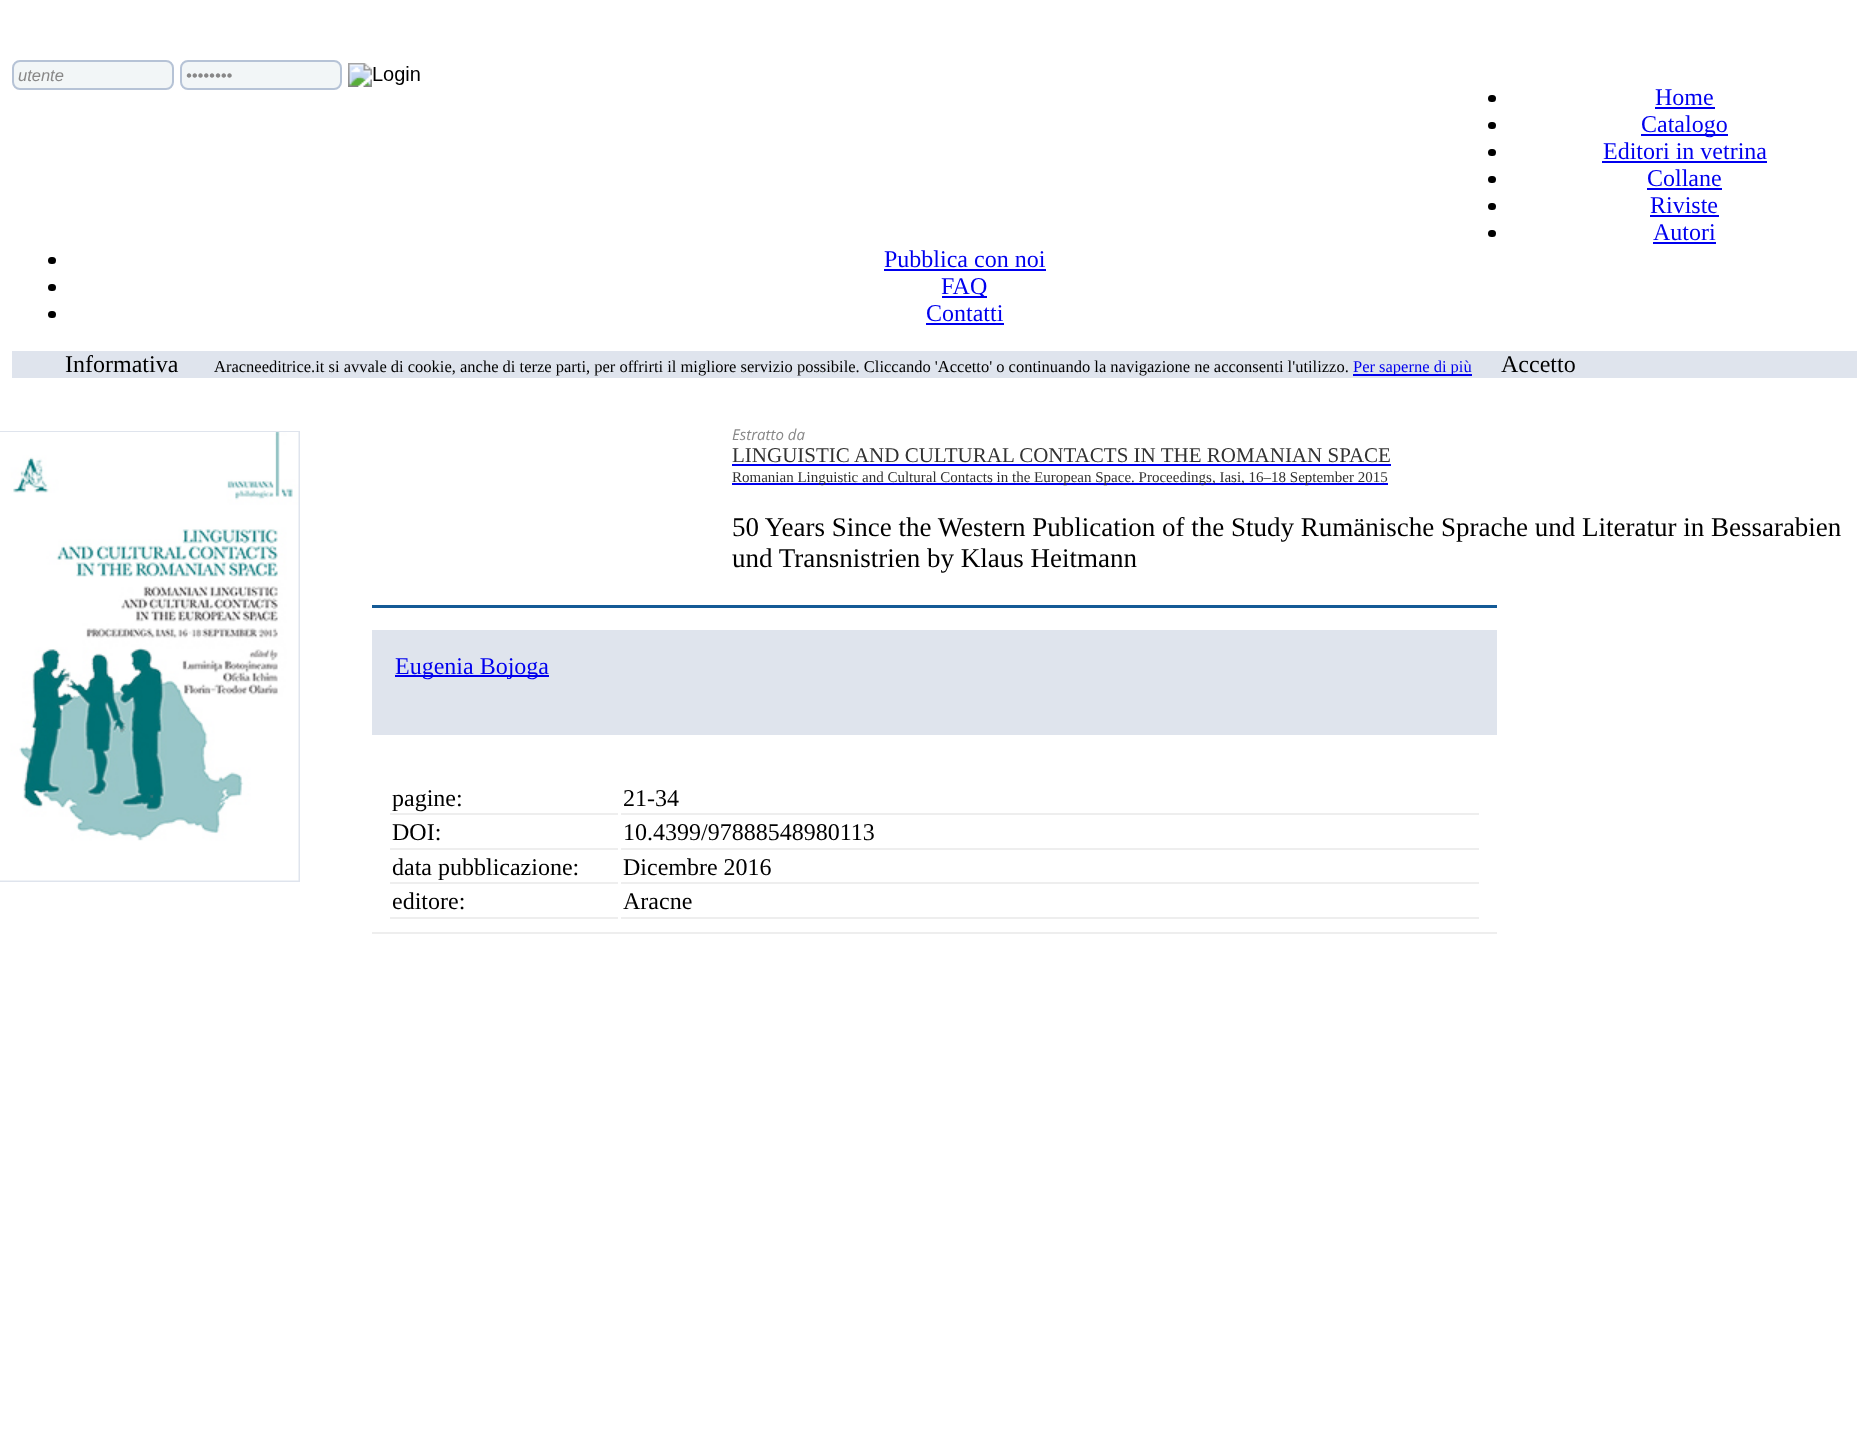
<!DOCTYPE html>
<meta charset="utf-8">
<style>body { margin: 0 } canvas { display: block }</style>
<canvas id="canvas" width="1868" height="1436"></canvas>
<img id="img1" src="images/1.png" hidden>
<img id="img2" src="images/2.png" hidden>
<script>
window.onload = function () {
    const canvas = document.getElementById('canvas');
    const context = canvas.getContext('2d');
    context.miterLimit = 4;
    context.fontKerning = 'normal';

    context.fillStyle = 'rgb(255, 255, 255)';
    context.fillRect(0, 0, 1868, 1436);
    context.fillStyle = 'rgb(242, 246, 247)';
    context.beginPath();
    context.roundRect(13, 61, 160, 28, 7);
    context.fill();
    context.strokeStyle = 'rgb(182, 195, 214)';
    context.lineWidth = 2;
    context.stroke();
    context.beginPath();
    context.roundRect(181, 61, 160, 28, 7);
    context.fill();
    context.stroke();
    context.drawImage(document.getElementById('img1'), 348, 63, 72, 24);
    context.fillStyle = 'rgb(0, 0, 0)';
    context.beginPath();
    context.roundRect(1488, 95, 8, 7, 3.5);
    context.fill();
    context.fillStyle = 'rgb(0, 0, 238)';
    context.fillRect(1655, 107, 60, 2);
    context.fillStyle = 'rgb(0, 0, 0)';
    context.beginPath();
    context.roundRect(1488, 122, 8, 7, 3.5);
    context.fill();
    context.fillStyle = 'rgb(0, 0, 238)';
    context.fillRect(1641, 134, 87, 2);
    context.fillStyle = 'rgb(0, 0, 0)';
    context.beginPath();
    context.roundRect(1488, 149, 8, 7, 3.5);
    context.fill();
    context.fillStyle = 'rgb(0, 0, 238)';
    context.fillRect(1602, 161, 165, 2);
    context.fillStyle = 'rgb(0, 0, 0)';
    context.beginPath();
    context.roundRect(1488, 176, 8, 7, 3.5);
    context.fill();
    context.fillStyle = 'rgb(0, 0, 238)';
    context.fillRect(1647, 188, 75, 2);
    context.fillStyle = 'rgb(0, 0, 0)';
    context.beginPath();
    context.roundRect(1488, 203, 8, 7, 3.5);
    context.fill();
    context.fillStyle = 'rgb(0, 0, 238)';
    context.fillRect(1650, 215, 69, 2);
    context.fillStyle = 'rgb(0, 0, 0)';
    context.beginPath();
    context.roundRect(1488, 230, 8, 7, 3.5);
    context.fill();
    context.fillStyle = 'rgb(0, 0, 238)';
    context.fillRect(1653, 242, 63, 2);
    context.fillStyle = 'rgb(0, 0, 0)';
    context.beginPath();
    context.roundRect(48, 257, 8, 7, 3.5);
    context.fill();
    context.fillStyle = 'rgb(0, 0, 238)';
    context.fillRect(884, 269, 162, 2);
    context.fillStyle = 'rgb(0, 0, 0)';
    context.beginPath();
    context.roundRect(48, 284, 8, 7, 3.5);
    context.fill();
    context.fillStyle = 'rgb(0, 0, 238)';
    context.fillRect(942, 296, 45, 2);
    context.fillStyle = 'rgb(0, 0, 0)';
    context.beginPath();
    context.roundRect(48, 311, 8, 7, 3.5);
    context.fill();
    context.fillStyle = 'rgb(0, 0, 238)';
    context.fillRect(926, 323, 78, 2);
    context.fillStyle = 'rgb(223, 228, 237)';
    context.fillRect(12, 351, 1845, 27);
    context.fillStyle = 'rgb(0, 0, 238)';
    context.fillRect(1353, 374, 119, 2);
    context.fillRect(732, 464, 659, 2);
    context.fillRect(732, 483, 656, 2);
    context.strokeStyle = 'rgb(223, 228, 237)';
    context.strokeRect(-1, 432, 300, 449);
    context.drawImage(document.getElementById('img2'), 0, 432, 299, 449);
    context.fillStyle = 'rgb(20, 90, 150)';
    context.fillRect(372, 605, 1125, 3);
    context.fillStyle = 'rgb(223, 228, 237)';
    context.fillRect(372, 630, 1125, 105);
    context.fillStyle = 'rgb(0, 0, 238)';
    context.fillRect(395, 675, 154, 2);
    context.fillStyle = 'rgb(238, 238, 238)';
    context.fillRect(372, 932, 1125, 2);
    context.fillRect(390, 813, 228, 2);
    context.fillRect(621, 813, 858, 2);
    context.fillRect(390, 848, 228, 2);
    context.fillRect(621, 848, 858, 2);
    context.fillRect(390, 882, 228, 2);
    context.fillRect(621, 882, 858, 2);
    context.fillRect(390, 917, 228, 2);
    context.fillRect(621, 917, 858, 2);
    context.font = 'italic 16.5px Liberation Sans';
    context.fillStyle = 'rgb(136, 136, 136)';
    context.fillText('utente', 18, 81);
    context.fillText('••••••••', 186, 81);
    context.font = '24px Liberation Serif';
    context.fillStyle = 'rgb(0, 0, 238)';
    context.fillText('Home', 1655, 105);
    context.fillText('Catalogo', 1641, 132);
    context.fillText('Editori in vetrina', 1603, 159);
    context.fillText('Collane', 1647, 186);
    context.fillText('Riviste', 1650, 213);
    context.fillText('Autori', 1653, 240);
    context.fillText('Pubblica con noi', 884, 267);
    context.fillText('FAQ', 941, 294);
    context.fillText('Contatti', 926, 321);
    context.fillStyle = 'rgb(0, 0, 0)';
    context.fillText('Informativa', 65, 372);
    context.font = '16.5px Liberation Serif';
    context.fillText('Aracneeditrice.it si avvale di cookie, anche di terze parti, per offrirti il migliore servizio possibile. Cliccando \'Accetto\' o continuando la navigazione ne acconsenti l\'utilizzo.', 214, 372);
    context.fillStyle = 'rgb(0, 0, 238)';
    context.fillText('Per saperne di più', 1353, 372);
    context.font = '24px Liberation Serif';
    context.fillStyle = 'rgb(0, 0, 0)';
    context.fillText('Accetto', 1501, 372);
    context.font = 'italic 15px Open Sans';
    context.fillStyle = 'rgb(136, 136, 136)';
    context.fillText('Estratto da', 732, 440);
    context.font = '21px Liberation Serif';
    context.fillStyle = 'rgb(51, 51, 51)';
    context.fillText('LINGUISTIC AND CULTURAL CONTACTS IN THE ROMANIAN SPACE', 732, 462);
    context.font = '15px Liberation Serif';
    context.fillText('Romanian Linguistic and Cultural Contacts in the European Space. Proceedings, Iasi, 16–18 September 2015', 732, 482);
    context.font = '27px Liberation Serif';
    context.fillStyle = 'rgb(0, 0, 0)';
    context.fillText('50 Years Since the Western Publication of the Study Rumänische Sprache und Literatur in Bessarabien', 732, 536);
    context.fillText('und Transnistrien by Klaus Heitmann', 732, 567);
    context.font = '24px Liberation Serif';
    context.fillStyle = 'rgb(0, 0, 238)';
    context.fillText('Eugenia Bojoga', 395, 674);
    context.fillStyle = 'rgb(0, 0, 0)';
    context.fillText('pagine:', 392, 806);
    context.fillText('21-34', 623, 806);
    context.fillText('DOI:', 392, 840);
    context.fillText('10.4399/97888548980113', 623, 840);
    context.fillText('data pubblicazione:', 392, 875);
    context.fillText('Dicembre 2016', 623, 875);
    context.fillText('editore:', 392, 909);
    context.fillText('Aracne', 623, 909);
};
</script>
